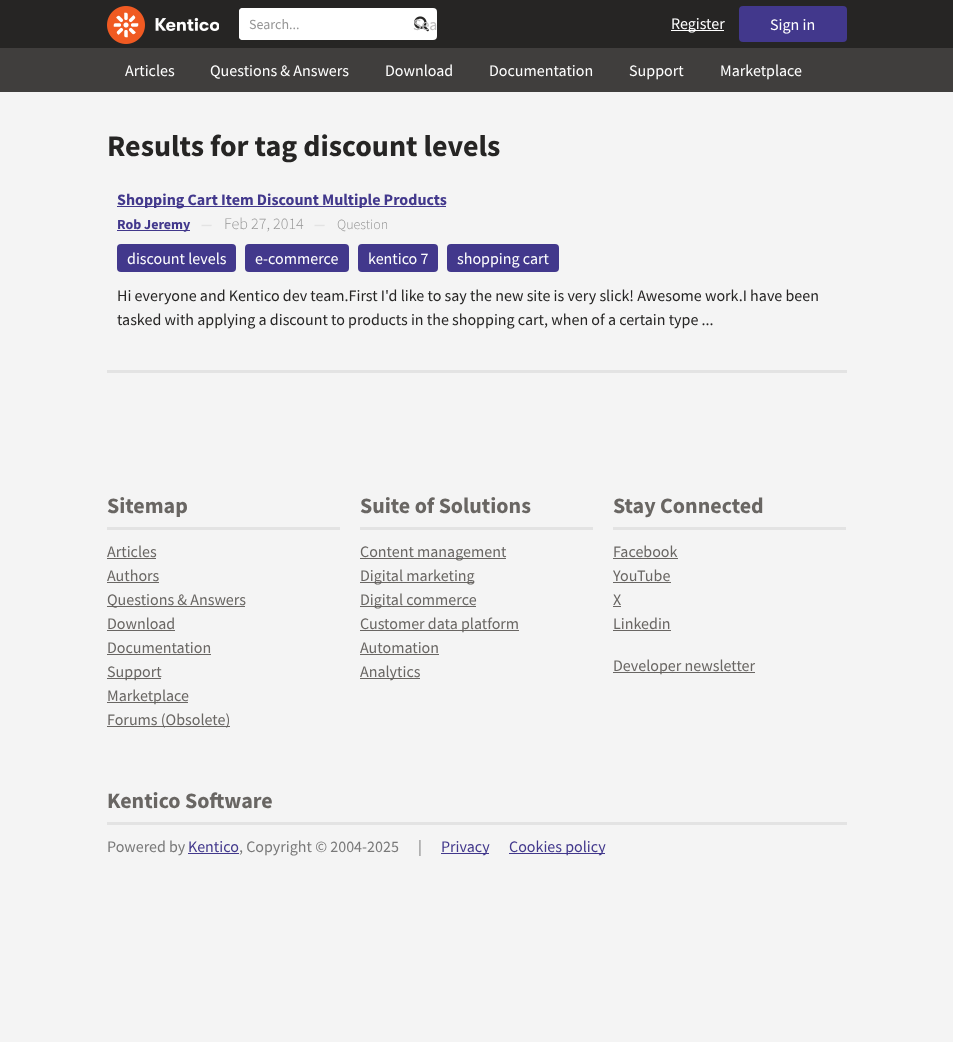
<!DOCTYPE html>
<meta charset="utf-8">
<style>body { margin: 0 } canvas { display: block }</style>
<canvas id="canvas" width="953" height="1042"></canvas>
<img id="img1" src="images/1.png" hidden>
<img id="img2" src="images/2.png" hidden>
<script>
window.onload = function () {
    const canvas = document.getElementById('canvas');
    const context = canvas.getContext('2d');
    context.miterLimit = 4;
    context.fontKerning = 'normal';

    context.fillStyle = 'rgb(244, 244, 244)';
    context.fillRect(0, 0, 953, 1042);
    context.fillStyle = 'rgb(38, 37, 36)';
    context.fillRect(0, 0, 953, 48);
    context.drawImage(document.getElementById('img1'), 107, 6, 112, 38);
    context.fillStyle = 'rgb(255, 255, 255)';
    context.beginPath();
    context.roundRect(239, 8, 198, 32, 4);
    context.fill();
    context.beginPath();
    context.roundRect(239, 8, 168, 32, [4, 0, 0, 4]);
    context.fill();
    context.drawImage(document.getElementById('img2'), 414, 16, 15, 16);
    context.fillRect(671, 30, 53, 1);
    context.fillStyle = 'rgb(66, 56, 140)';
    context.beginPath();
    context.roundRect(739, 6, 108, 36, 4);
    context.fill();
    context.fillStyle = 'rgb(64, 62, 61)';
    context.fillRect(0, 48, 953, 44);
    context.fillStyle = 'rgb(66, 56, 140)';
    context.fillRect(117, 206, 329, 1);
    context.fillRect(117, 230, 73, 1);
    context.beginPath();
    context.roundRect(117, 244, 119, 28, 4);
    context.fill();
    context.beginPath();
    context.roundRect(245, 244, 104, 28, 4);
    context.fill();
    context.beginPath();
    context.roundRect(358, 244, 80, 28, 4);
    context.fill();
    context.beginPath();
    context.roundRect(447, 244, 112, 28, 4);
    context.fill();
    context.fillStyle = 'rgb(227, 227, 227)';
    context.fillRect(107, 370, 740, 3);
    context.fillRect(107, 527, 233, 3);
    context.fillStyle = 'rgb(105, 102, 99)';
    context.fillRect(107, 558, 49, 1);
    context.fillRect(107, 582, 52, 1);
    context.fillRect(107, 606, 138, 1);
    context.fillRect(107, 630, 68, 1);
    context.fillRect(107, 654, 104, 1);
    context.fillRect(107, 678, 54, 1);
    context.fillRect(107, 702, 81, 1);
    context.fillRect(107, 726, 123, 1);
    context.fillStyle = 'rgb(227, 227, 227)';
    context.fillRect(360, 527, 233, 3);
    context.fillStyle = 'rgb(105, 102, 99)';
    context.fillRect(360, 558, 146, 1);
    context.fillRect(360, 582, 114, 1);
    context.fillRect(360, 606, 116, 1);
    context.fillRect(360, 630, 159, 1);
    context.fillRect(360, 654, 79, 1);
    context.fillRect(360, 678, 60, 1);
    context.fillStyle = 'rgb(227, 227, 227)';
    context.fillRect(613, 527, 233, 3);
    context.fillStyle = 'rgb(105, 102, 99)';
    context.fillRect(613, 558, 65, 1);
    context.fillRect(613, 582, 58, 1);
    context.fillRect(613, 606, 8, 1);
    context.fillRect(613, 630, 58, 1);
    context.fillRect(613, 672, 142, 1);
    context.fillStyle = 'rgb(227, 227, 227)';
    context.fillRect(107, 822, 740, 3);
    context.fillStyle = 'rgb(66, 56, 140)';
    context.fillRect(188, 853, 51, 1);
    context.fillRect(441, 853, 48, 1);
    context.fillRect(509, 853, 96, 1);
    context.font = '14px Source Sans Pro';
    context.fillStyle = 'rgb(149, 149, 149)';
    context.fillText('Search...', 249, 29);
    context.font = '16px Source Sans Pro';
    context.fillStyle = 'rgb(192, 191, 191)';
    context.fillText('Sea', 413, 30);
    context.fillStyle = 'rgb(255, 255, 255)';
    context.fillText('Register', 671, 29);
    context.fillText('Sign in', 770, 30);
    context.fillText('Articles', 125, 76);
    context.fillText('Questions & Answers', 210, 76);
    context.fillText('Download', 385, 76);
    context.fillText('Documentation', 489, 76);
    context.fillText('Support', 629, 76);
    context.fillText('Marketplace', 720, 76);
    context.font = 'bold 30px Source Sans Pro';
    context.fillStyle = 'rgb(38, 37, 36)';
    context.fillText('Results for tag discount levels', 107, 156);
    context.font = 'bold 16px Source Sans Pro';
    context.fillStyle = 'rgb(66, 56, 140)';
    context.fillText('Shopping Cart Item Discount Multiple Products', 117, 205);
    context.font = 'bold 14px Source Sans Pro';
    context.fillText('Rob Jeremy', 117, 229);
    context.fillStyle = 'rgb(227, 227, 227)';
    context.fillText('—', 201, 229);
    context.font = '300 16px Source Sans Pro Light';
    context.fillStyle = 'rgb(149, 149, 149)';
    context.fillText('Feb 27, 2014', 224, 229);
    context.font = 'bold 14px Source Sans Pro';
    context.fillStyle = 'rgb(227, 227, 227)';
    context.fillText('—', 314, 229);
    context.font = '300 14px Source Sans Pro Light';
    context.fillStyle = 'rgb(149, 149, 149)';
    context.fillText('Question', 337, 229);
    context.font = '16px Source Sans Pro';
    context.fillStyle = 'rgb(255, 255, 255)';
    context.fillText('discount levels', 127, 264);
    context.fillText('e-commerce', 255, 264);
    context.fillText('kentico 7', 368, 264);
    context.fillText('shopping cart', 457, 264);
    context.fillStyle = 'rgb(38, 37, 36)';
    context.fillText('Hi everyone and Kentico dev team.First I\'d like to say the new site is very slick! Awesome work.I have been', 117, 301);
    context.fillText('tasked with applying a discount to products in the shopping cart, when of a certain type ...', 117, 325);
    context.font = 'bold 22px Source Sans Pro';
    context.fillStyle = 'rgb(105, 102, 99)';
    context.fillText('Sitemap', 107, 513);
    context.font = '16px Source Sans Pro';
    context.fillText('Articles', 107, 557);
    context.fillText('Authors', 107, 581);
    context.fillText('Questions & Answers', 107, 605);
    context.fillText('Download', 107, 629);
    context.fillText('Documentation', 107, 653);
    context.fillText('Support', 107, 677);
    context.fillText('Marketplace', 107, 701);
    context.fillText('Forums (Obsolete)', 107, 725);
    context.font = 'bold 22px Source Sans Pro';
    context.fillText('Suite of Solutions', 360, 513);
    context.font = '16px Source Sans Pro';
    context.fillText('Content management', 360, 557);
    context.fillText('Digital marketing', 360, 581);
    context.fillText('Digital commerce', 360, 605);
    context.fillText('Customer data platform', 360, 629);
    context.fillText('Automation', 360, 653);
    context.fillText('Analytics', 360, 677);
    context.font = 'bold 22px Source Sans Pro';
    context.fillText('Stay Connected', 613, 513);
    context.font = '16px Source Sans Pro';
    context.fillText('Facebook', 613, 557);
    context.fillText('YouTube', 613, 581);
    context.fillText('X', 613, 605);
    context.fillText('Linkedin', 613, 629);
    context.fillText('Developer newsletter', 613, 671);
    context.font = 'bold 22px Source Sans Pro';
    context.fillText('Kentico Software', 107, 808);
    context.font = '16px Source Sans Pro';
    context.fillStyle = 'rgb(121, 121, 121)';
    context.fillText('Powered by', 107, 852);
    context.fillStyle = 'rgb(66, 56, 140)';
    context.fillText('Kentico', 188, 852);
    context.fillStyle = 'rgb(121, 121, 121)';
    context.fillText(', Copyright © 2004-2025', 239, 852);
    context.fillText('|', 418, 852);
    context.fillStyle = 'rgb(66, 56, 140)';
    context.fillText('Privacy', 441, 852);
    context.fillText('Cookies policy', 509, 852);
};
</script>
